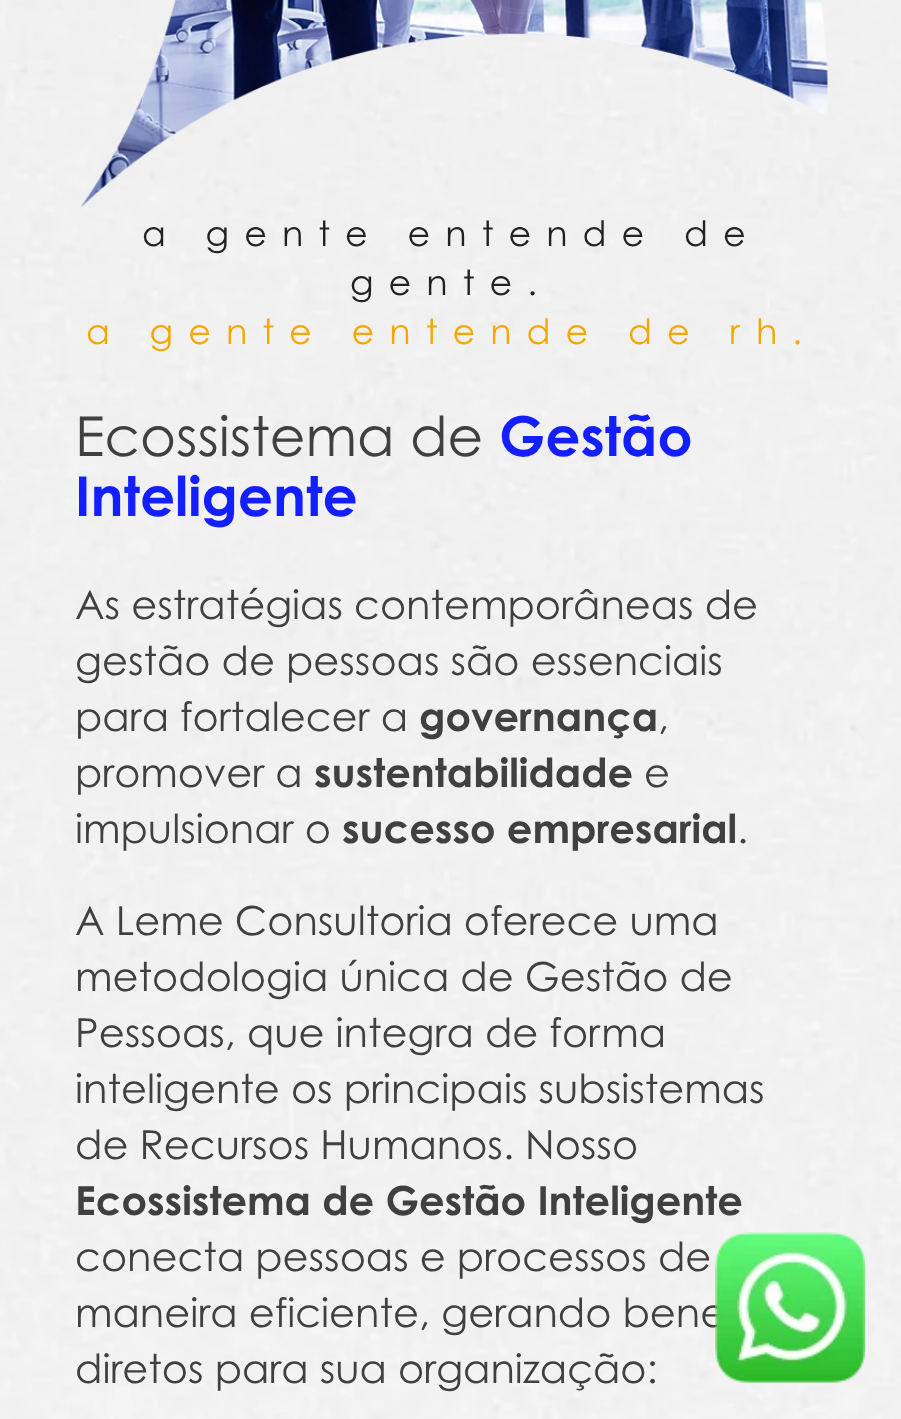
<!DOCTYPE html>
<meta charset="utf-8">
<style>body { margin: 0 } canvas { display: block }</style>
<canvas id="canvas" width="901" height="1419"></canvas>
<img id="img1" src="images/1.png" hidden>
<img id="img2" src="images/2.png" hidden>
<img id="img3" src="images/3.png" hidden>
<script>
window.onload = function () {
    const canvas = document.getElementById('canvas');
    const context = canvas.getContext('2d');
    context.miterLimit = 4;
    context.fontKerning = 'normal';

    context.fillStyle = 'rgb(255, 255, 255)';
    context.fillRect(0, 0, 901, 1419);
    context.drawImage(document.getElementById('img1'), 0, 0, 901, 1419);
    context.drawImage(document.getElementById('img2'), 80, 0, 748, 207);
    context.letterSpacing = '15px';
    context.font = '35px Century Gothic';
    context.fillStyle = 'rgb(34, 34, 34)';
    context.fillText('a gente entende de', 142, 246);
    context.fillText('gente.', 350, 295);
    context.fillStyle = 'rgb(247, 166, 0)';
    context.fillText('a gente entende de rh.', 86, 344);
    context.letterSpacing = '0px';
    context.font = '55px Century Gothic';
    context.fillStyle = 'rgb(64, 64, 64)';
    context.fillText('Ecossistema de', 75, 456);
    context.font = 'bold 55px Century Gothic';
    context.fillStyle = 'rgb(20, 31, 255)';
    context.fillText('Gestão', 499, 456);
    context.fillText('Inteligente', 75, 516);
    context.font = '40px Century Gothic';
    context.fillStyle = 'rgb(64, 64, 64)';
    context.fillText('As estratégias contemporâneas de', 75, 619);
    context.fillText('gestão de pessoas são essenciais', 75, 675);
    context.fillText('para fortalecer a', 75, 731);
    context.font = 'bold 40px Century Gothic';
    context.fillText('governança', 419, 731);
    context.font = '40px Century Gothic';
    context.fillText(',', 658, 731);
    context.fillText('promover a', 75, 787);
    context.font = 'bold 40px Century Gothic';
    context.fillText('sustentabilidade', 314, 787);
    context.font = '40px Century Gothic';
    context.fillText('e', 644, 787);
    context.fillText('impulsionar o', 75, 843);
    context.font = 'bold 40px Century Gothic';
    context.fillText('sucesso empresarial', 342, 843);
    context.font = '40px Century Gothic';
    context.fillText('.', 737, 843);
    context.fillText('A Leme Consultoria oferece uma', 75, 935);
    context.fillText('metodologia única de Gestão de', 75, 991);
    context.fillText('Pessoas, que integra de forma', 75, 1047);
    context.fillText('inteligente os principais subsistemas', 75, 1103);
    context.fillText('de Recursos Humanos. Nosso', 75, 1159);
    context.font = 'bold 40px Century Gothic';
    context.fillText('Ecossistema de Gestão Inteligente', 75, 1215);
    context.font = '40px Century Gothic';
    context.fillText('conecta pessoas e processos de', 75, 1271);
    context.fillText('maneira eficiente, gerando bene', 75, 1327);
    context.fillText('diretos para sua organização:', 75, 1383);
    context.drawImage(document.getElementById('img3'), 715, 1232, 150, 151);
};
</script>
